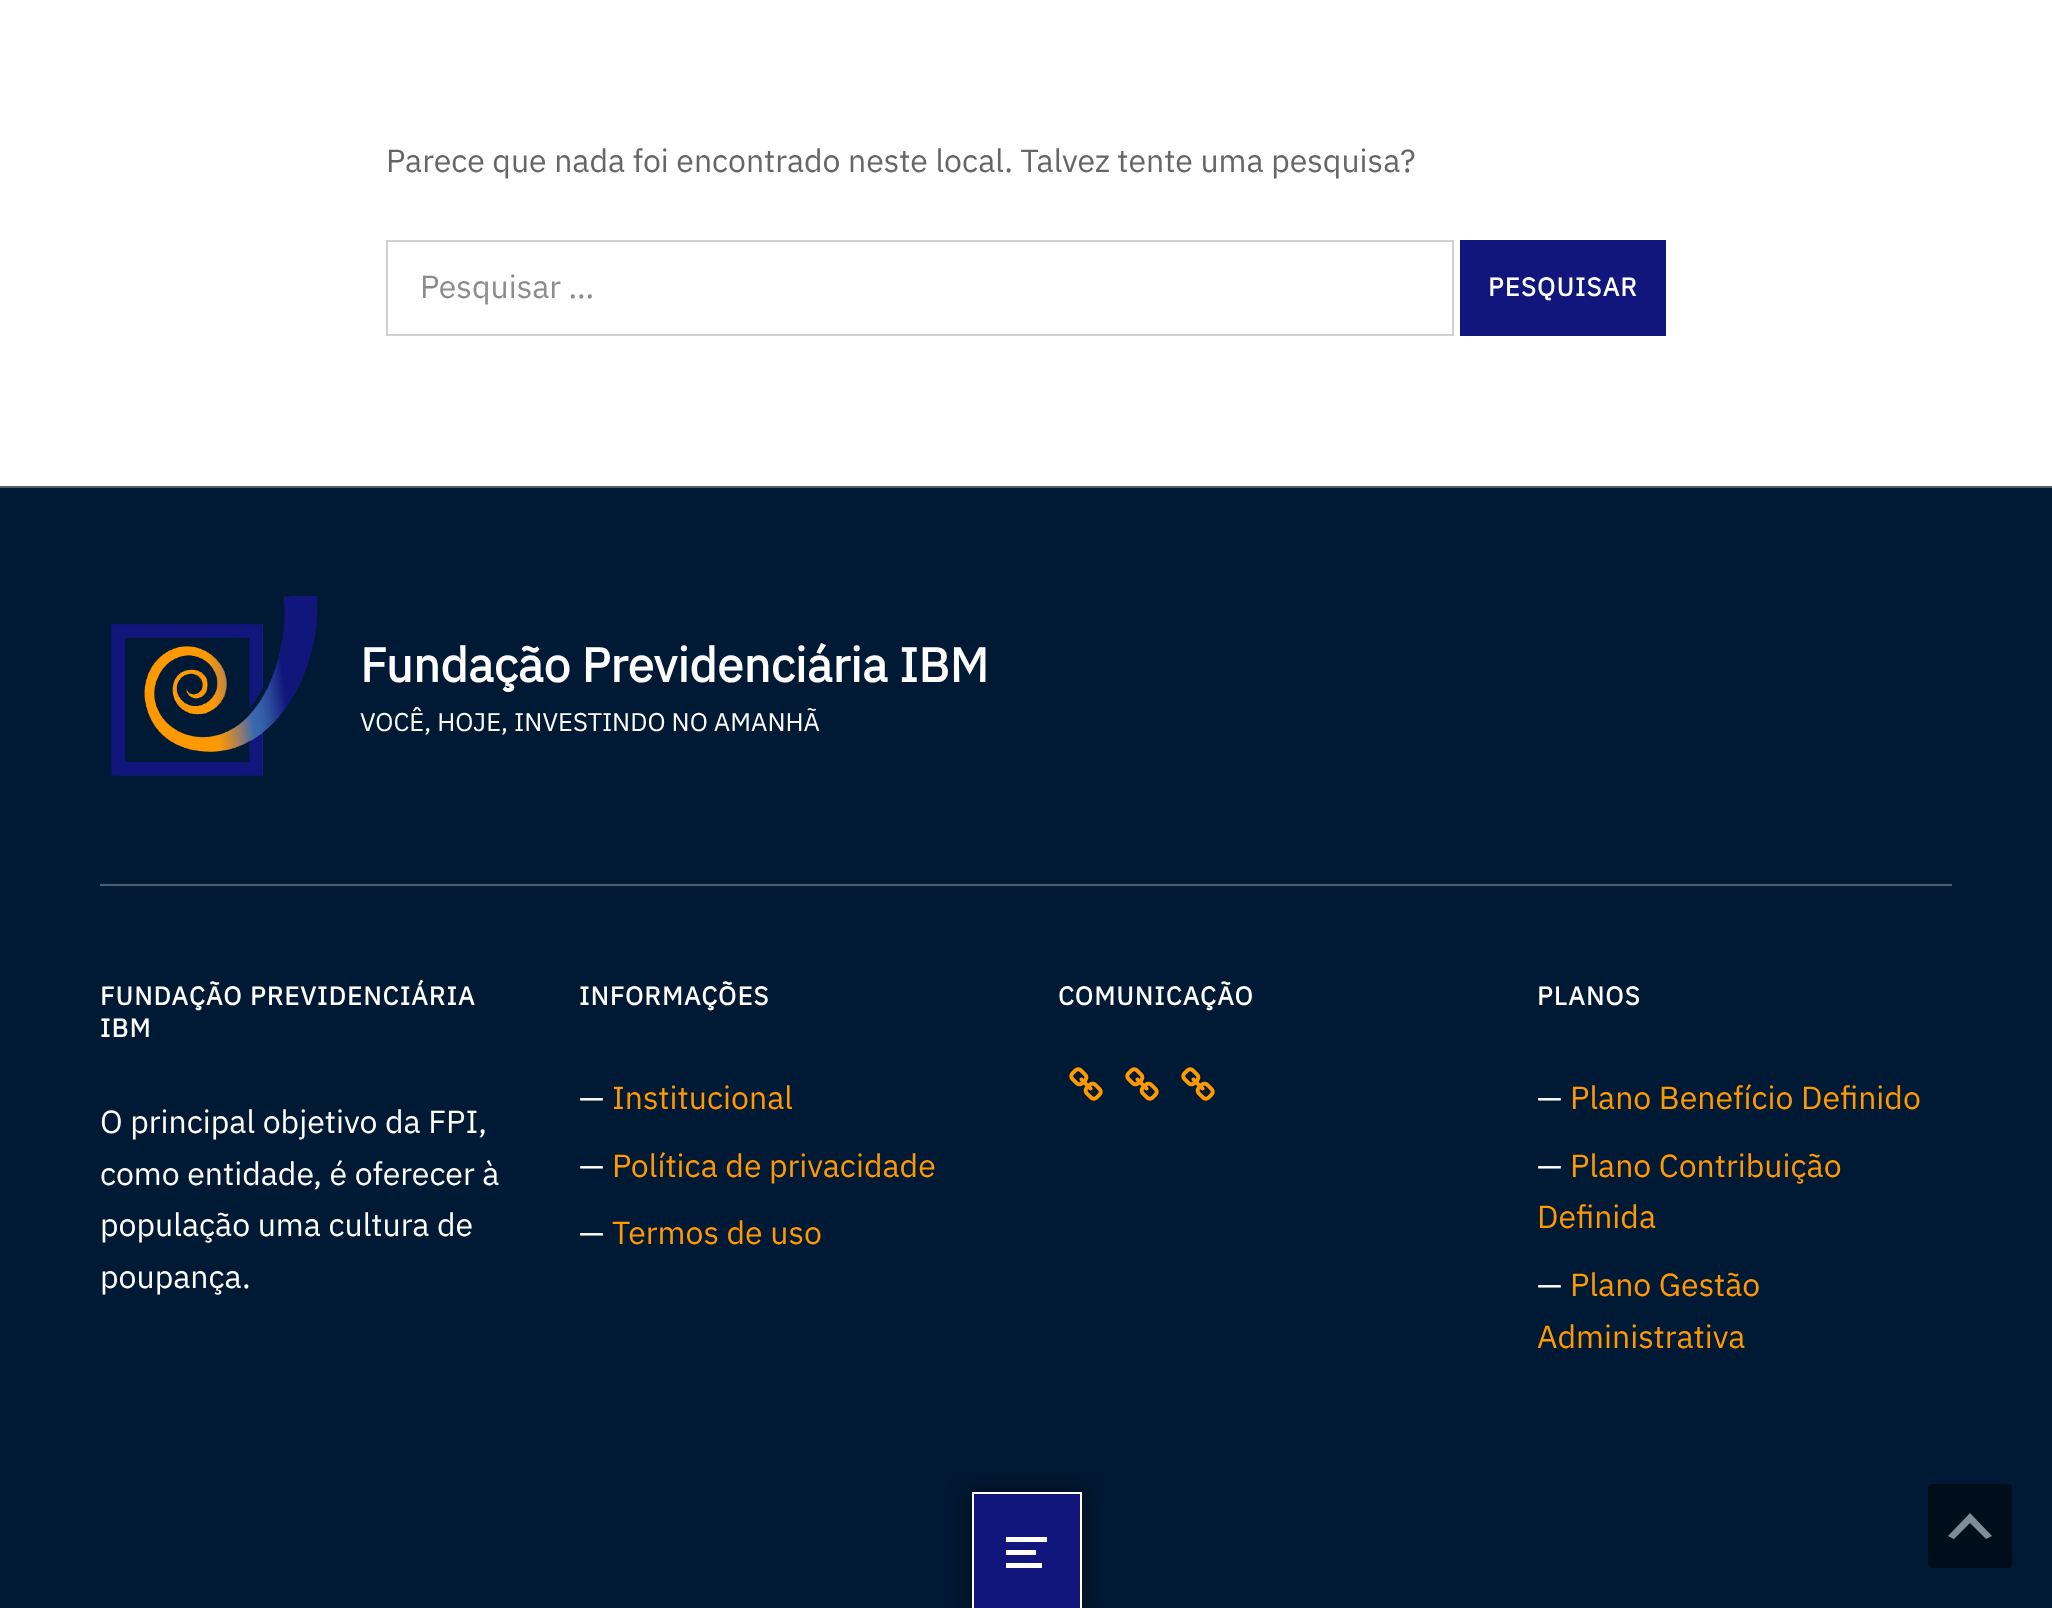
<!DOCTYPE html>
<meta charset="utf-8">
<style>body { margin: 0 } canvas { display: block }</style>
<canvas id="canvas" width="2052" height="1608"></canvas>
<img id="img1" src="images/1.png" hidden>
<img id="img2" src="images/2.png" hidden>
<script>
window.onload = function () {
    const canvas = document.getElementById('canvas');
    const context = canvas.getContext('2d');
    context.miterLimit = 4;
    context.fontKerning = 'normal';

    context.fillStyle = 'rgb(0, 25, 52)';
    context.fillRect(0, 0, 2052, 1608);
    context.fillStyle = 'rgb(255, 255, 255)';
    context.fillRect(0, 0, 2052, 486);
    context.strokeStyle = 'rgb(209, 209, 209)';
    context.lineWidth = 2;
    context.strokeRect(387, 241, 1066, 94);
    context.fillStyle = 'rgb(17, 22, 124)';
    context.fillRect(1460, 240, 206, 96);
    context.fillStyle = 'rgb(77, 94, 113)';
    context.fillRect(0, 486, 2052, 2);
    context.fillRect(100, 884, 1852, 2);
    context.drawImage(document.getElementById('img1'), 111, 596, 207, 180);
    context.drawImage(document.getElementById('img2'), 1069, 1067, 34, 34);
    context.drawImage(document.getElementById('img2'), 1125, 1067, 34, 34);
    context.drawImage(document.getElementById('img2'), 1181, 1067, 34, 34);
    context.fillStyle = 'rgba(0, 0, 0, 0.5)';
    context.filter = 'blur(13px)';
    context.beginPath();
    context.rect(972, 1492, 110, 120);
    context.fill();
    context.filter = 'none';
    context.fillStyle = 'rgb(17, 22, 124)';
    context.beginPath();
    context.rect(973, 1493, 108, 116);
    context.fill();
    context.strokeStyle = 'rgb(255, 255, 255)';
    context.stroke();
    context.save();
    context.beginPath();
    context.rect(1006, 1532, 42, 42);
    context.clip();
    context.fillStyle = 'rgb(255, 255, 255)';
    context.beginPath();
    context.moveTo(1005, 1537);
    context.lineTo(1005, 1542);
    context.lineTo(1047, 1542);
    context.lineTo(1047, 1537);
    context.closePath();
    context.moveTo(1005, 1555);
    context.lineTo(1036, 1555);
    context.lineTo(1036, 1550);
    context.lineTo(1005, 1550);
    context.closePath();
    context.moveTo(1005, 1568);
    context.lineTo(1042, 1568);
    context.lineTo(1042, 1563);
    context.lineTo(1005, 1563);
    context.closePath();
    context.fill();
    context.restore();
    context.fillStyle = 'rgb(0, 13, 26)';
    context.beginPath();
    context.roundRect(1928, 1484, 84, 84, 4);
    context.fill();
    context.fillStyle = 'rgb(128, 140, 154)';
    context.beginPath();
    context.moveTo(1986, 1539);
    context.lineTo(1970, 1523);
    context.lineTo(1954, 1539);
    context.lineTo(1948, 1536);
    context.lineTo(1970, 1513);
    context.lineTo(1992, 1536);
    context.closePath();
    context.fill();
    context.font = '32px IBM Plex Sans';
    context.fillStyle = 'rgb(102, 102, 102)';
    context.fillText('Parece que nada foi encontrado neste local. Talvez tente uma pesquisa?', 386, 172);
    context.fillStyle = 'rgb(140, 140, 140)';
    context.fillText('Pesquisar …', 420, 298);
    context.letterSpacing = '1.25px';
    context.font = 'bold 25.6px IBM Plex Sans';
    context.fillStyle = 'rgb(255, 255, 255)';
    context.fillText('PESQUISAR', 1488, 296);
    context.letterSpacing = '0px';
    context.font = 'bold 48px IBM Plex Sans';
    context.fillText('Fundação Previdenciária IBM', 360, 682);
    context.font = '25.6px IBM Plex Sans';
    context.fillText('VOCÊ, HOJE, INVESTINDO NO AMANHÃ', 360, 731);
    context.letterSpacing = '1.25px';
    context.font = 'bold 25.6px IBM Plex Sans';
    context.fillText('FUNDAÇÃO PREVIDENCIÁRIA', 100, 1005);
    context.fillText('IBM', 100, 1037);
    context.letterSpacing = '0px';
    context.font = '32px IBM Plex Sans';
    context.fillText('O principal objetivo da FPI,', 100, 1133);
    context.fillText('como entidade, é oferecer à', 100, 1185);
    context.fillText('população uma cultura de', 100, 1236);
    context.fillText('poupança.', 100, 1288);
    context.letterSpacing = '1.25px';
    context.font = 'bold 25.6px IBM Plex Sans';
    context.fillText('INFORMAÇÕES', 579, 1005);
    context.letterSpacing = '0px';
    context.font = '32px IBM Plex Sans';
    context.fillText('—', 579, 1109);
    context.fillStyle = 'rgb(255, 153, 0)';
    context.fillText('Institucional', 612, 1109);
    context.fillStyle = 'rgb(255, 255, 255)';
    context.fillText('—', 579, 1177);
    context.fillStyle = 'rgb(255, 153, 0)';
    context.fillText('Política de privacidade', 612, 1177);
    context.fillStyle = 'rgb(255, 255, 255)';
    context.fillText('—', 579, 1244);
    context.fillStyle = 'rgb(255, 153, 0)';
    context.fillText('Termos de uso', 612, 1244);
    context.letterSpacing = '1.25px';
    context.font = 'bold 25.6px IBM Plex Sans';
    context.fillStyle = 'rgb(255, 255, 255)';
    context.fillText('COMUNICAÇÃO', 1058, 1005);
    context.fillText('PLANOS', 1537, 1005);
    context.letterSpacing = '0px';
    context.font = '32px IBM Plex Sans';
    context.fillText('—', 1537, 1109);
    context.fillStyle = 'rgb(255, 153, 0)';
    context.fillText('Plano Benefício Definido', 1570, 1109);
    context.fillStyle = 'rgb(255, 255, 255)';
    context.fillText('—', 1537, 1177);
    context.fillStyle = 'rgb(255, 153, 0)';
    context.fillText('Plano Contribuição', 1570, 1177);
    context.fillText('Definida', 1537, 1228);
    context.fillStyle = 'rgb(255, 255, 255)';
    context.fillText('—', 1537, 1296);
    context.fillStyle = 'rgb(255, 153, 0)';
    context.fillText('Plano Gestão', 1570, 1296);
    context.fillText('Administrativa', 1537, 1348);
};
</script>
